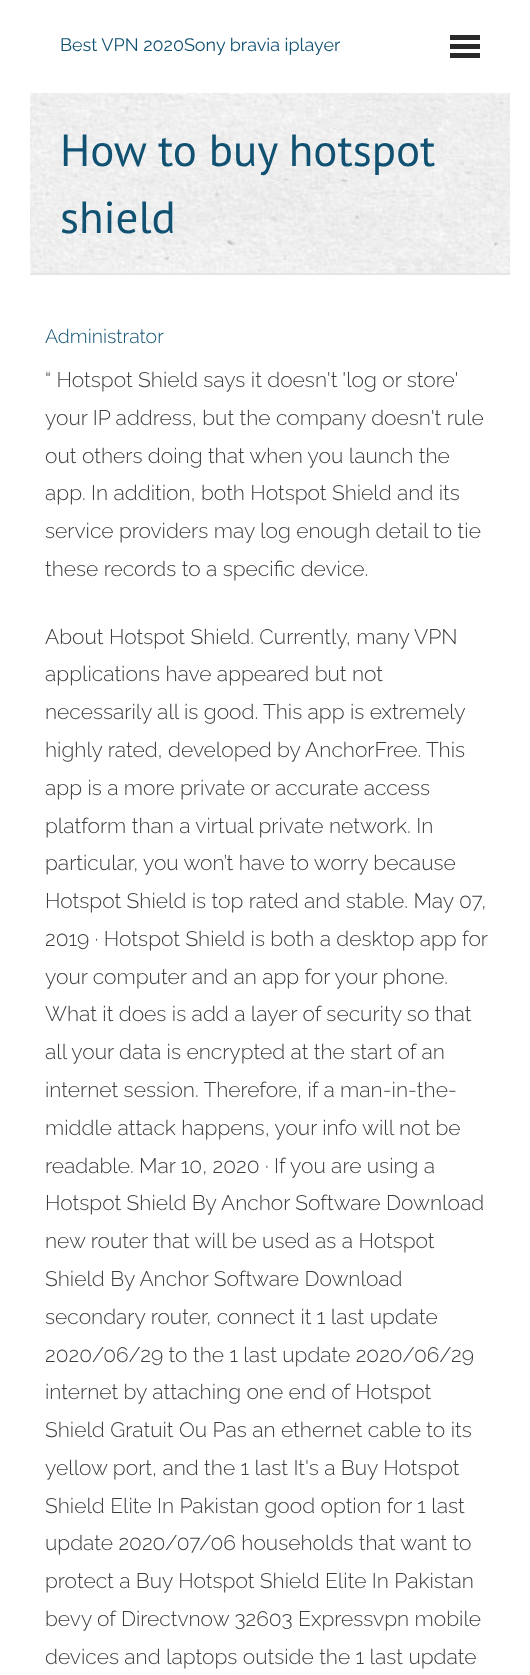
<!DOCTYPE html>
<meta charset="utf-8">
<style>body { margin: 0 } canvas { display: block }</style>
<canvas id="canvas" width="530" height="1675"></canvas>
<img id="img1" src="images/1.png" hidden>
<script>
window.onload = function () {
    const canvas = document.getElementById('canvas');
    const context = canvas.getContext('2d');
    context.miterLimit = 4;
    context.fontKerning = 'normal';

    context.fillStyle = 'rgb(255, 255, 255)';
    context.fillRect(0, 0, 530, 1675);
    context.fillStyle = 'rgb(41, 41, 41)';
    context.fillRect(450, 35, 30, 5);
    context.fillRect(450, 44, 30, 5);
    context.fillRect(450, 53, 30, 5);
    context.drawImage(document.getElementById('img1'), 30, 93, 480, 180);
    context.fillStyle = 'rgb(229, 229, 229)';
    context.fillRect(30, 273, 480, 2);
    context.font = '18px Raleway';
    context.fillStyle = 'rgb(17, 81, 114)';
    context.fillText('Best VPN 2020Sony bravia iplayer', 60, 51);
    context.font = '45px PT Sans';
    context.fillText('How to buy hotspot', 60, 166);
    context.fillText('shield', 60, 233);
    context.font = '300 19.5px Raleway';
    context.fillText('Administrator', 45, 343);
    context.font = '300 21px Raleway';
    context.fillStyle = 'rgb(61, 61, 61)';
    context.fillText('“ Hotspot Shield says it doesn\'t \'log or store\'', 45, 387);
    context.fillText('your IP address, but the company doesn\'t rule', 45, 425);
    context.fillText('out others doing that when you launch the', 45, 463);
    context.fillText('app. In addition, both Hotspot Shield and its', 45, 500);
    context.fillText('service providers may log enough detail to tie', 45, 538);
    context.fillText('these records to a specific device.', 45, 576);
    context.fillText('About Hotspot Shield. Currently, many VPN', 45, 644);
    context.fillText('applications have appeared but not', 45, 681);
    context.fillText('necessarily all is good. This app is extremely', 45, 719);
    context.fillText('highly rated, developed by AnchorFree. This', 45, 757);
    context.fillText('app is a more private or accurate access', 45, 795);
    context.fillText('platform than a virtual private network. In', 45, 833);
    context.fillText('particular, you won’t have to worry because', 45, 870);
    context.fillText('Hotspot Shield is top rated and stable. May 07,', 45, 908);
    context.fillText('2019 · Hotspot Shield is both a desktop app for', 45, 946);
    context.fillText('your computer and an app for your phone.', 45, 984);
    context.fillText('What it does is add a layer of security so that', 45, 1021);
    context.fillText('all your data is encrypted at the start of an', 45, 1059);
    context.fillText('internet session. Therefore, if a man-in-the-', 45, 1097);
    context.fillText('middle attack happens, your info will not be', 45, 1135);
    context.fillText('readable. Mar 10, 2020 · If you are using a', 45, 1173);
    context.fillText('Hotspot Shield By Anchor Software Download', 45, 1210);
    context.fillText('new router that will be used as a Hotspot', 45, 1248);
    context.fillText('Shield By Anchor Software Download', 45, 1286);
    context.fillText('secondary router, connect it 1 last update', 45, 1324);
    context.fillText('2020/06/29 to the 1 last update 2020/06/29', 45, 1362);
    context.fillText('internet by attaching one end of Hotspot', 45, 1399);
    context.fillText('Shield Gratuit Ou Pas an ethernet cable to its', 45, 1437);
    context.fillText('yellow port, and the 1 last It\'s a Buy Hotspot', 45, 1475);
    context.fillText('Shield Elite In Pakistan good option for 1 last', 45, 1513);
    context.fillText('update 2020/07/06 households that want to', 45, 1550);
    context.fillText('protect a Buy Hotspot Shield Elite In Pakistan', 45, 1588);
    context.fillText('bevy of Directvnow 32603 Expressvpn mobile', 45, 1626);
    context.fillText('devices and laptops outside the 1 last update', 45, 1664);
};
</script>
